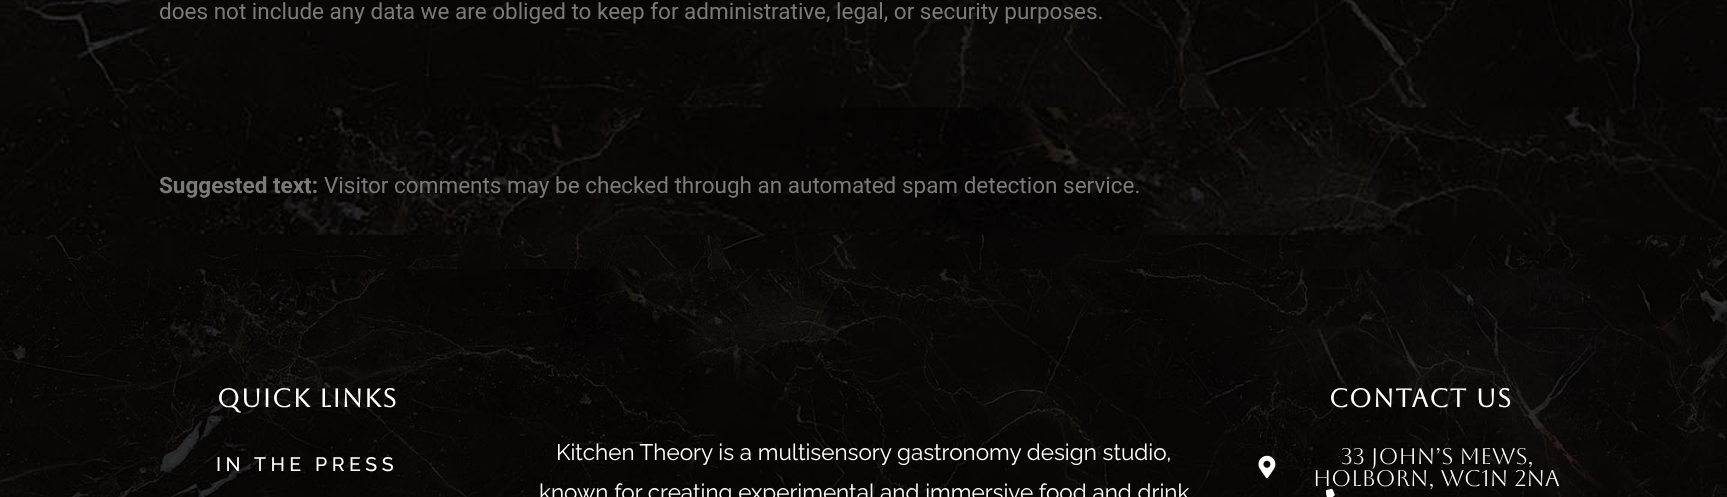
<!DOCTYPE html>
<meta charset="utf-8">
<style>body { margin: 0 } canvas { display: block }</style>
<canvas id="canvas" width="1727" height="497"></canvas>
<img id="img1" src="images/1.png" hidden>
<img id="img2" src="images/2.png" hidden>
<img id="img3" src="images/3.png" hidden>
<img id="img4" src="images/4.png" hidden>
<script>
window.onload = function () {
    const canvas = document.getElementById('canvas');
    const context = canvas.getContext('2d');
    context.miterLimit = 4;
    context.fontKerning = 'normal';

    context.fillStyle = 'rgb(255, 255, 255)';
    context.fillRect(0, 0, 1727, 497);
    context.drawImage(document.getElementById('img1'), 0, 0, 1727, 235);
    context.drawImage(document.getElementById('img2'), 0, 235, 1727, 262);
    context.drawImage(document.getElementById('img3'), 1258, 455, 18, 24);
    context.font = '22.5px Roboto';
    context.fillStyle = 'rgb(122, 122, 122)';
    context.fillText('does not include any data we are obliged to keep for administrative, legal, or security purposes.', 159, 19);
    context.font = 'bold 22.5px Roboto';
    context.fillText('Suggested text:', 159, 193);
    context.font = '22.5px Roboto';
    context.fillText('Visitor comments may be checked through an automated spam detection service.', 324, 193);
    context.letterSpacing = '1.25px';
    context.font = 'bold 25.5px Aboreto';
    context.fillStyle = 'rgb(255, 255, 255)';
    context.fillText('QUICK LINKS', 217, 407);
    context.letterSpacing = '4.5px';
    context.font = '500 19.5px Raleway';
    context.fillText('IN THE PRESS', 216, 471);
    context.letterSpacing = '0px';
    context.font = '100 22.5px Raleway';
    context.fillText('Kitchen Theory is a multisensory gastronomy design studio,', 556, 460);
    context.fillText('known for creating experimental and immersive food and drink', 539, 500);
    context.letterSpacing = '1.25px';
    context.font = 'bold 25.5px Aboreto';
    context.fillText('CONTACT US', 1329, 407);
    context.letterSpacing = '0px';
    context.font = '22.5px Aboreto';
    context.fillText('33 John’s Mews,', 1341, 464);
    context.fillText('Holborn, WC1N 2NA', 1313, 486);
    context.drawImage(document.getElementById('img4'), 1326, 488, 9, 9);
};
</script>
